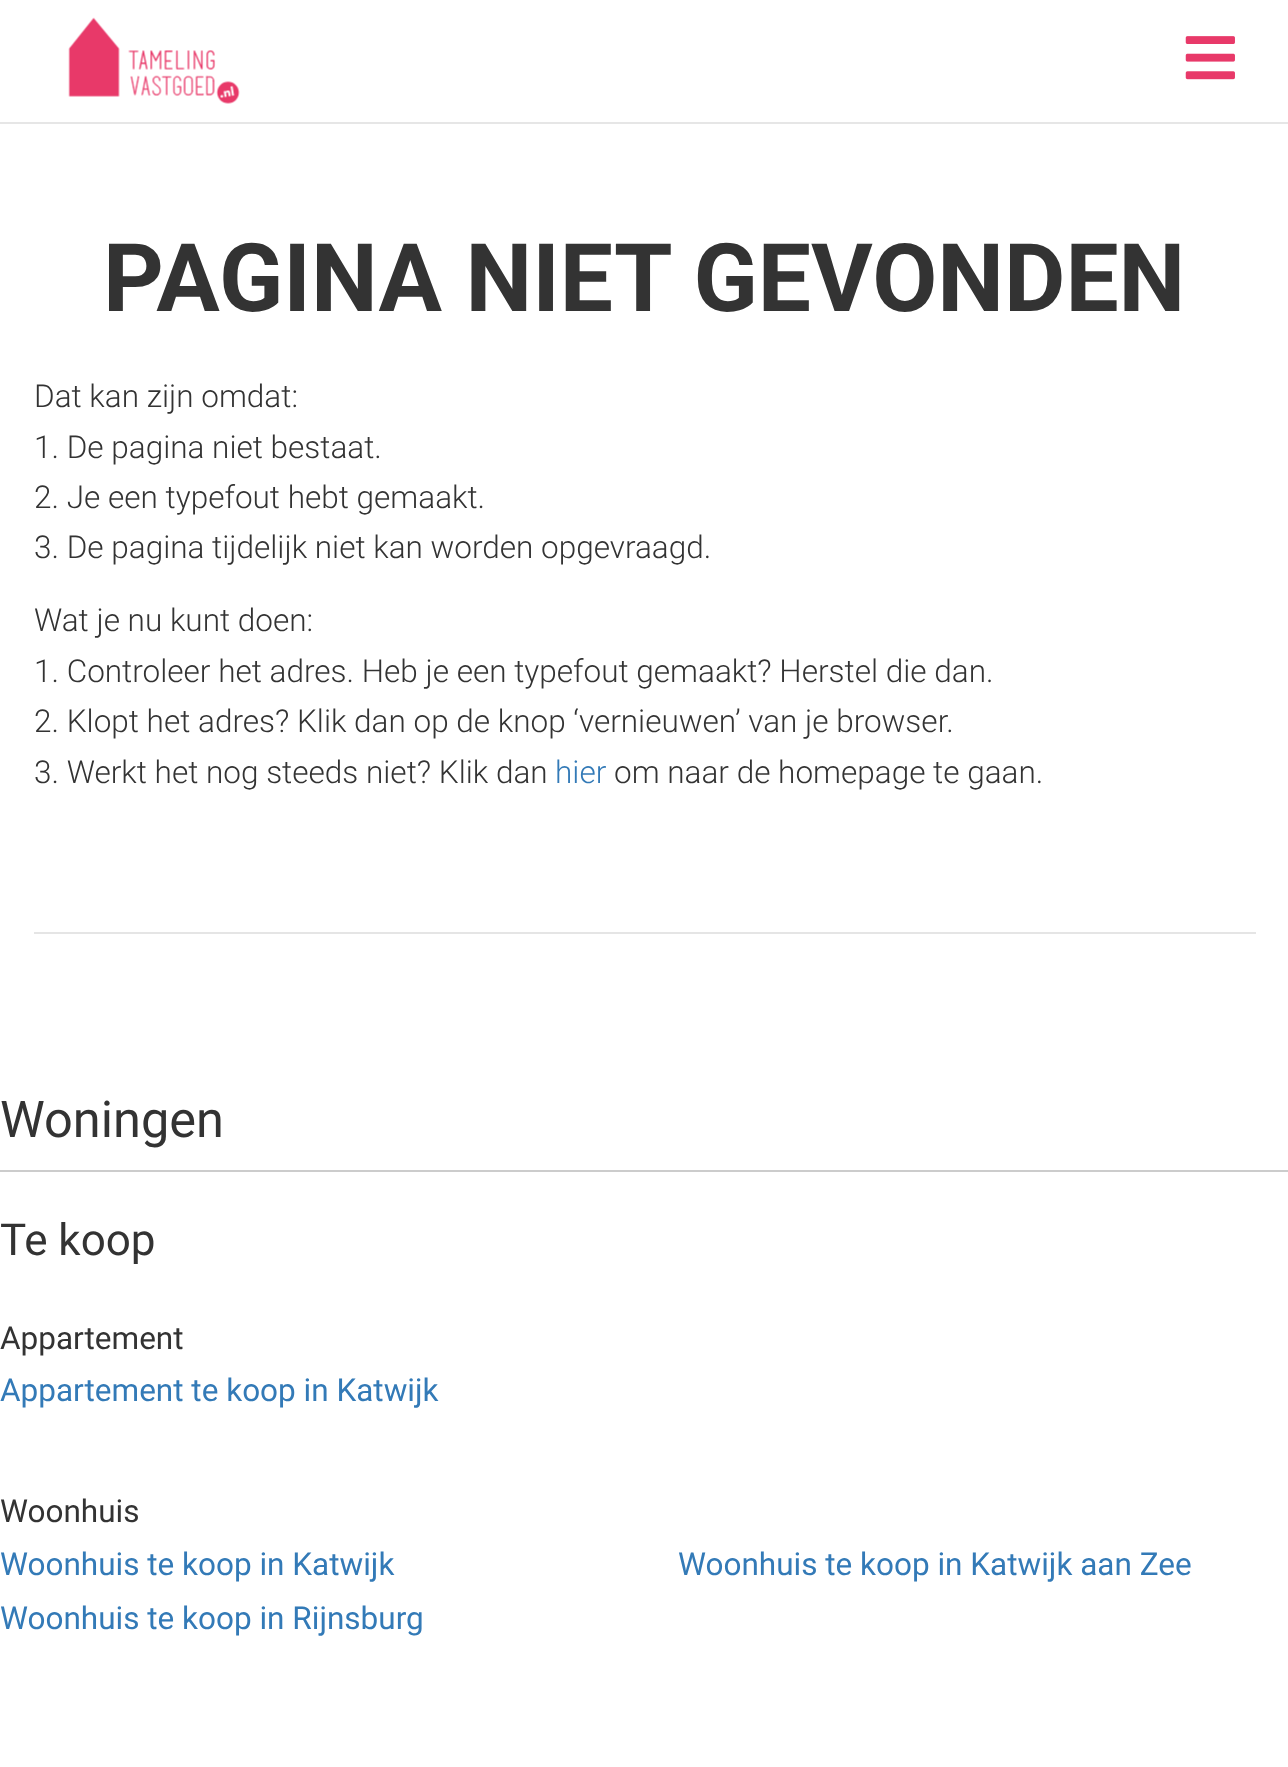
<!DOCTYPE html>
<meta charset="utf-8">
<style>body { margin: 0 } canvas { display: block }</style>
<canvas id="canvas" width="1288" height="1767"></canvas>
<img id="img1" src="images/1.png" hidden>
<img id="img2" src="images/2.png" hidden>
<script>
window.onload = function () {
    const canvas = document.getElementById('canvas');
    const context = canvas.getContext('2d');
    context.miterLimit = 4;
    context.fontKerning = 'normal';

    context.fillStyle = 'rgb(255, 255, 255)';
    context.fillRect(0, 0, 1288, 1767);
    context.fillStyle = 'rgb(230, 230, 230)';
    context.fillRect(0, 122, 1288, 2);
    context.drawImage(document.getElementById('img1'), 68, 17, 172, 87);
    context.drawImage(document.getElementById('img2'), 1185, 36, 50, 44);
    context.fillStyle = 'rgb(229, 229, 229)';
    context.fillRect(34, 932, 1222, 2);
    context.fillStyle = 'rgb(204, 204, 204)';
    context.fillRect(0, 1170, 1288, 2);
    context.font = 'bold 94.5px Roboto';
    context.fillStyle = 'rgb(51, 51, 51)';
    context.fillText('PAGINA NIET GEVONDEN', 103, 311);
    context.font = '300 31.5px Roboto';
    context.fillText('Dat kan zijn omdat:', 34, 407);
    context.fillText('1. De pagina niet bestaat.', 34, 458);
    context.fillText('2. Je een typefout hebt gemaakt.', 34, 508);
    context.fillText('3. De pagina tijdelijk niet kan worden opgevraagd.', 34, 558);
    context.fillText('Wat je nu kunt doen:', 34, 631);
    context.fillText('1. Controleer het adres. Heb je een typefout gemaakt? Herstel die dan.', 34, 682);
    context.fillText('2. Klopt het adres? Klik dan op de knop ‘vernieuwen’ van je browser.', 34, 732);
    context.fillText('3. Werkt het nog steeds niet? Klik dan', 34, 783);
    context.fillStyle = 'rgb(51, 122, 183)';
    context.fillText('hier', 555, 783);
    context.fillStyle = 'rgb(51, 51, 51)';
    context.fillText('om naar de homepage te gaan.', 614, 783);
    context.font = '50.5px Roboto';
    context.fillText('Woningen', 0, 1137);
    context.font = '44px Roboto';
    context.fillText('Te koop', 0, 1255);
    context.font = '31.5px Roboto';
    context.fillText('Appartement', 0, 1349);
    context.fillStyle = 'rgb(51, 122, 183)';
    context.fillText('Appartement te koop in Katwijk', 0, 1401);
    context.fillStyle = 'rgb(51, 51, 51)';
    context.fillText('Woonhuis', 0, 1522);
    context.fillStyle = 'rgb(51, 122, 183)';
    context.fillText('Woonhuis te koop in Katwijk', 0, 1575);
    context.fillText('Woonhuis te koop in Katwijk aan Zee', 678, 1575);
    context.fillText('Woonhuis te koop in Rijnsburg', 0, 1629);
};
</script>
